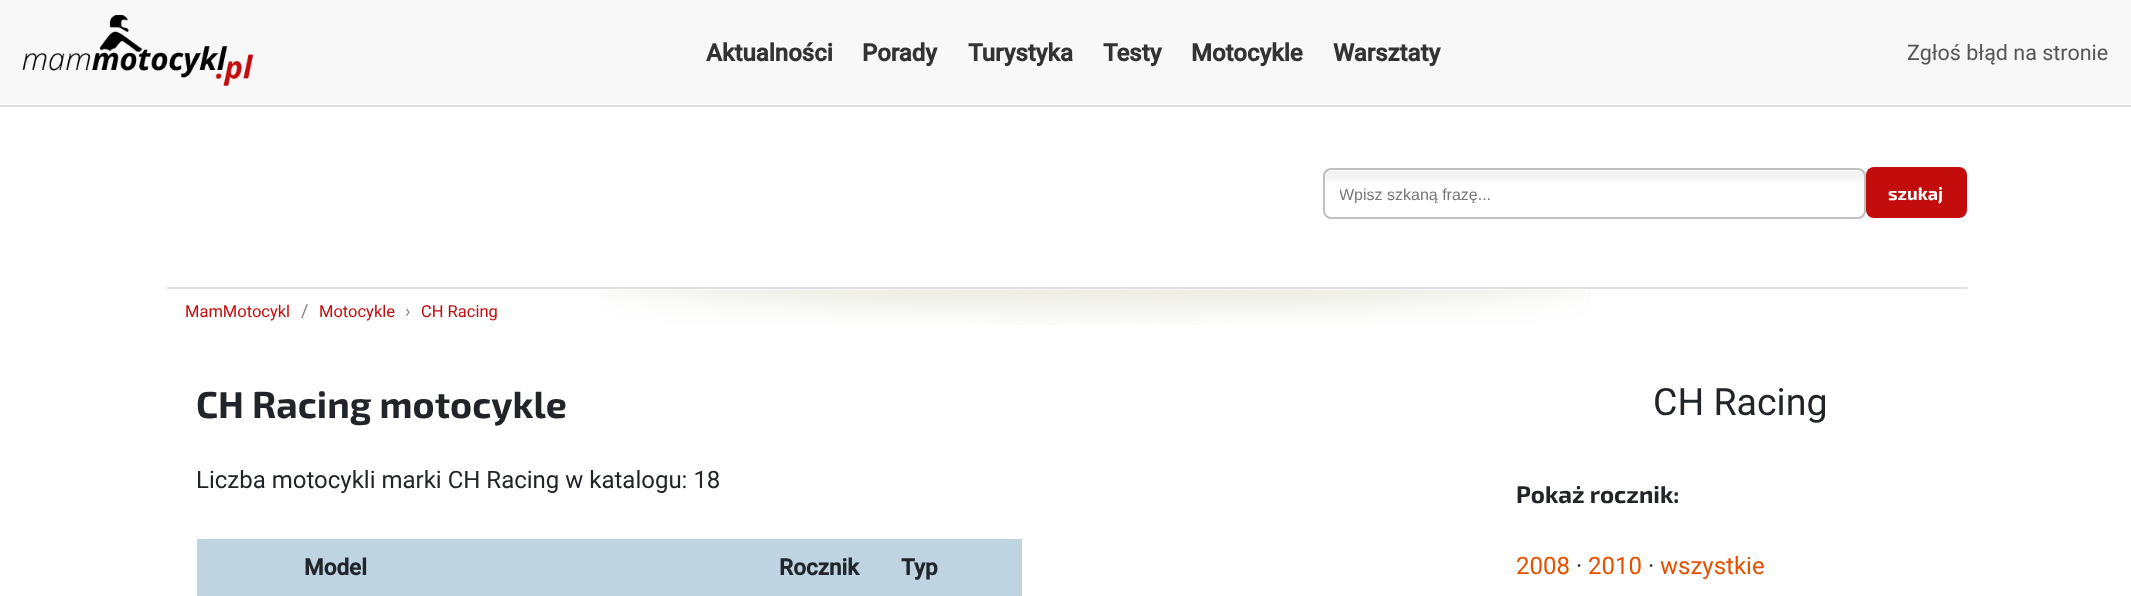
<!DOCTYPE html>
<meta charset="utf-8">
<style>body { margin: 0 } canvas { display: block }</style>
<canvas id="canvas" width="2131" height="596"></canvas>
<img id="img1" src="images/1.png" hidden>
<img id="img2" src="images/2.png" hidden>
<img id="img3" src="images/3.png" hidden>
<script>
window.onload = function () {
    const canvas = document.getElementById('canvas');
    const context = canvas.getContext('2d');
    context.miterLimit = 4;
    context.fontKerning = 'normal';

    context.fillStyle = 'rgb(255, 255, 255)';
    context.fillRect(0, 0, 2131, 596);
    context.fillStyle = 'rgb(248, 248, 248)';
    context.fillRect(0, 0, 2131, 105);
    context.fillStyle = 'rgb(221, 221, 221)';
    context.fillRect(0, 105, 2131, 2);
    context.drawImage(document.getElementById('img1'), 22, 15, 232, 72);
    context.drawImage(document.getElementById('img2'), 1323, 171, 543, 11);
    context.beginPath();
    context.roundRect(1324, 169, 541, 49, 7);
    context.strokeStyle = 'rgb(192, 192, 192)';
    context.lineWidth = 2;
    context.stroke();
    context.fillStyle = 'rgb(195, 12, 12)';
    context.beginPath();
    context.roundRect(1866, 167, 101, 51, 8);
    context.fill();
    context.drawImage(document.getElementById('img3'), 598, 289, 993, 36);
    context.fillStyle = 'rgb(224, 224, 224)';
    context.fillRect(167, 287, 1800, 2);
    context.fillStyle = 'rgb(191, 212, 225)';
    context.fillRect(197, 539, 825, 57);
    context.font = 'bold 24px Roboto';
    context.fillStyle = 'rgb(51, 51, 51)';
    context.fillText('Aktualności', 706, 61);
    context.fillText('Porady', 862, 61);
    context.fillText('Turystyka', 968, 61);
    context.fillText('Testy', 1103, 61);
    context.fillText('Motocykle', 1191, 61);
    context.fillText('Warsztaty', 1333, 61);
    context.font = '21.5px Roboto';
    context.fillStyle = 'rgb(85, 85, 85)';
    context.fillText('Zgłoś błąd na stronie', 1907, 60);
    context.save();
    context.beginPath();
    context.rect(1340, 185, 510, 18);
    context.clip();
    context.font = '16px Liberation Sans';
    context.fillStyle = 'rgb(119, 119, 119)';
    context.fillText('Wpisz szkaną frazę...', 1339, 200);
    context.restore();
    context.font = 'bold 18px "Exo 2"';
    context.fillStyle = 'rgb(255, 255, 255)';
    context.fillText('szukaj', 1888, 200);
    context.font = '16.5px Roboto';
    context.fillStyle = 'rgb(195, 12, 12)';
    context.fillText('MamMotocykl', 185, 317);
    context.font = '18px Roboto';
    context.fillStyle = 'rgb(128, 128, 128)';
    context.fillText('/', 301, 317);
    context.font = '16.5px Roboto';
    context.fillStyle = 'rgb(195, 12, 12)';
    context.fillText('Motocykle', 319, 317);
    context.font = '18px Roboto';
    context.fillStyle = 'rgb(128, 128, 128)';
    context.fillText('›', 405, 317);
    context.font = '16.5px Roboto';
    context.fillStyle = 'rgb(195, 12, 12)';
    context.fillText('CH Racing', 421, 317);
    context.font = 'bold 37.5px "Exo 2"';
    context.fillStyle = 'rgb(33, 37, 41)';
    context.fillText('CH Racing motocykle', 196, 418);
    context.font = '24px Roboto';
    context.fillText('Liczba motocykli marki CH Racing w katalogu: 18', 196, 488);
    context.font = 'bold 22.5px Roboto';
    context.fillText('Model', 304, 575);
    context.fillText('Rocznik', 779, 575);
    context.fillText('Typ', 901, 575);
    context.font = '37.5px Roboto';
    context.fillText('CH Racing', 1653, 415);
    context.font = 'bold 24px "Exo 2"';
    context.fillText('Pokaż rocznik:', 1516, 503);
    context.font = '24px Roboto';
    context.fillStyle = 'rgb(230, 81, 0)';
    context.fillText('2008', 1516, 574);
    context.fillStyle = 'rgb(33, 37, 41)';
    context.fillText('·', 1576, 574);
    context.fillStyle = 'rgb(230, 81, 0)';
    context.fillText('2010', 1588, 574);
    context.fillStyle = 'rgb(33, 37, 41)';
    context.fillText('·', 1648, 574);
    context.fillStyle = 'rgb(230, 81, 0)';
    context.fillText('wszystkie', 1660, 574);
};
</script>
